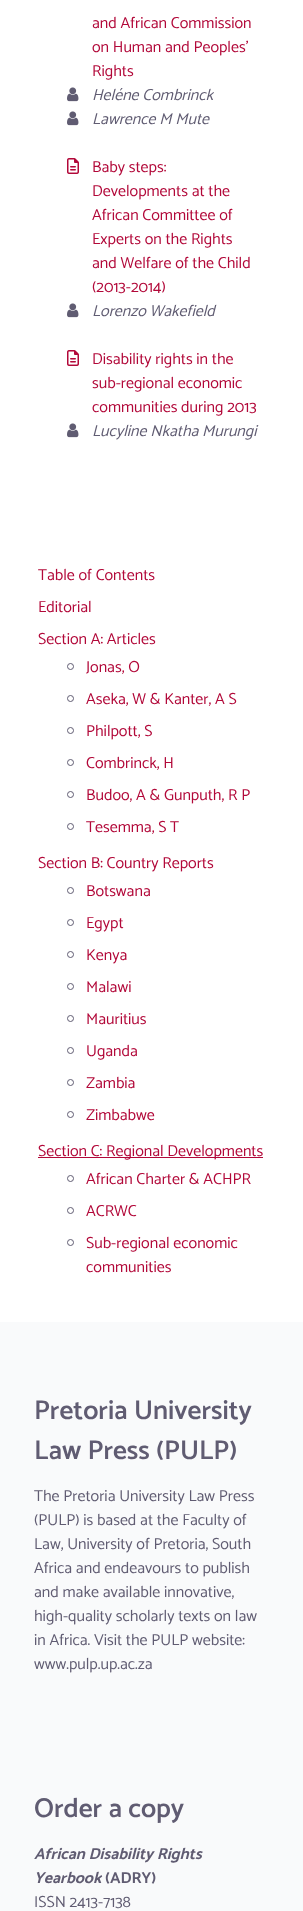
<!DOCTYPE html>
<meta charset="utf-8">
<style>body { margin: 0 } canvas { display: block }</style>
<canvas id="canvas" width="303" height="1911"></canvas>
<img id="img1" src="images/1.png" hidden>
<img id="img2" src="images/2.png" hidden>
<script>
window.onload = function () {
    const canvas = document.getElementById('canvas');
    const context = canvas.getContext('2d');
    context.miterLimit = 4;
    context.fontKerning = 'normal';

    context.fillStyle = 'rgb(255, 255, 255)';
    context.fillRect(0, 0, 303, 1911);
    context.drawImage(document.getElementById('img1'), 67, 87, 12, 15);
    context.drawImage(document.getElementById('img1'), 67, 111, 12, 15);
    context.drawImage(document.getElementById('img2'), 67, 158, 12, 16);
    context.drawImage(document.getElementById('img1'), 67, 303, 12, 15);
    context.drawImage(document.getElementById('img2'), 67, 350, 12, 16);
    context.drawImage(document.getElementById('img1'), 67, 423, 12, 15);
    context.beginPath();
    context.arc(70.5, 666.5, 3, 0, 2 * Math.PI);
    context.strokeStyle = 'rgb(96, 92, 114)';
    context.stroke();
    context.beginPath();
    context.arc(70.5, 698.5, 3, 0, 2 * Math.PI);
    context.stroke();
    context.beginPath();
    context.arc(70.5, 730.5, 3, 0, 2 * Math.PI);
    context.stroke();
    context.beginPath();
    context.arc(70.5, 762.5, 3, 0, 2 * Math.PI);
    context.stroke();
    context.beginPath();
    context.arc(70.5, 794.5, 3, 0, 2 * Math.PI);
    context.stroke();
    context.beginPath();
    context.arc(70.5, 826.5, 3, 0, 2 * Math.PI);
    context.stroke();
    context.beginPath();
    context.arc(70.5, 890.5, 3, 0, 2 * Math.PI);
    context.stroke();
    context.beginPath();
    context.arc(70.5, 922.5, 3, 0, 2 * Math.PI);
    context.stroke();
    context.beginPath();
    context.arc(70.5, 954.5, 3, 0, 2 * Math.PI);
    context.stroke();
    context.beginPath();
    context.arc(70.5, 986.5, 3, 0, 2 * Math.PI);
    context.stroke();
    context.beginPath();
    context.arc(70.5, 1018.5, 3, 0, 2 * Math.PI);
    context.stroke();
    context.beginPath();
    context.arc(70.5, 1050.5, 3, 0, 2 * Math.PI);
    context.stroke();
    context.beginPath();
    context.arc(70.5, 1082.5, 3, 0, 2 * Math.PI);
    context.stroke();
    context.beginPath();
    context.arc(70.5, 1114.5, 3, 0, 2 * Math.PI);
    context.stroke();
    context.fillStyle = 'rgb(178, 8, 57)';
    context.fillRect(38, 1157, 225, 1);
    context.beginPath();
    context.arc(70.5, 1178.5, 3, 0, 2 * Math.PI);
    context.stroke();
    context.beginPath();
    context.arc(70.5, 1210.5, 3, 0, 2 * Math.PI);
    context.stroke();
    context.beginPath();
    context.arc(70.5, 1242.5, 3, 0, 2 * Math.PI);
    context.stroke();
    context.fillStyle = 'rgb(249, 250, 251)';
    context.fillRect(0, 1322, 303, 589);
    context.font = '16px Catamaran';
    context.fillStyle = 'rgb(178, 8, 57)';
    context.fillText('and African Commission', 92, 28);
    context.fillText('on Human and Peoples’', 92, 52);
    context.fillText('Rights', 92, 76);
    context.font = 'italic 16px Catamaran';
    context.fillStyle = 'rgb(96, 92, 114)';
    context.fillText('Heléne Combrinck', 92, 100);
    context.fillText('Lawrence M Mute', 92, 124);
    context.font = '16px Catamaran';
    context.fillStyle = 'rgb(178, 8, 57)';
    context.fillText('Baby steps:', 92, 172);
    context.fillText('Developments at the', 92, 196);
    context.fillText('African Committee of', 92, 220);
    context.fillText('Experts on the Rights', 92, 244);
    context.fillText('and Welfare of the Child', 92, 268);
    context.fillText('(2013-2014)', 92, 292);
    context.font = 'italic 16px Catamaran';
    context.fillStyle = 'rgb(96, 92, 114)';
    context.fillText('Lorenzo Wakefield', 92, 316);
    context.font = '16px Catamaran';
    context.fillStyle = 'rgb(178, 8, 57)';
    context.fillText('Disability rights in the', 92, 364);
    context.fillText('sub-regional economic', 92, 388);
    context.fillText('communities during 2013', 92, 412);
    context.font = 'italic 16px Catamaran';
    context.fillStyle = 'rgb(96, 92, 114)';
    context.fillText('Lucyline Nkatha Murungi', 92, 436);
    context.font = '16px Catamaran';
    context.fillStyle = 'rgb(178, 8, 57)';
    context.fillText('Table of Contents', 38, 580);
    context.fillText('Editorial', 38, 612);
    context.fillText('Section A: Articles', 38, 644);
    context.fillText('Jonas, O', 86, 672);
    context.fillText('Aseka, W & Kanter, A S', 86, 704);
    context.fillText('Philpott, S', 86, 736);
    context.fillText('Combrinck, H', 86, 768);
    context.fillText('Budoo, A & Gunputh, R P', 86, 800);
    context.fillText('Tesemma, S T', 86, 832);
    context.fillText('Section B: Country Reports', 38, 868);
    context.fillText('Botswana', 86, 896);
    context.fillText('Egypt', 86, 928);
    context.fillText('Kenya', 86, 960);
    context.fillText('Malawi', 86, 992);
    context.fillText('Mauritius', 86, 1024);
    context.fillText('Uganda', 86, 1056);
    context.fillText('Zambia', 86, 1088);
    context.fillText('Zimbabwe', 86, 1120);
    context.fillText('Section C: Regional Developments', 38, 1156);
    context.fillText('African Charter & ACHPR', 86, 1184);
    context.fillText('ACRWC', 86, 1216);
    context.fillText('Sub-regional economic', 86, 1248);
    context.fillText('communities', 86, 1272);
    context.font = '600 27.25px Catamaran';
    context.fillStyle = 'rgb(96, 92, 114)';
    context.fillText('Pretoria University', 34, 1419);
    context.fillText('Law Press (PULP)', 34, 1459);
    context.font = '16px Catamaran';
    context.fillText('The Pretoria University Law Press', 34, 1501);
    context.fillText('(PULP) is based at the Faculty of', 34, 1525);
    context.fillText('Law, University of Pretoria, South', 34, 1549);
    context.fillText('Africa and endeavours to publish', 34, 1573);
    context.fillText('and make available innovative,', 34, 1597);
    context.fillText('high-quality scholarly texts on law', 34, 1621);
    context.fillText('in Africa. Visit the PULP website:', 34, 1645);
    context.fillText('www.pulp.up.ac.za', 34, 1669);
    context.font = '600 27.25px Catamaran';
    context.fillText('Order a copy', 34, 1817);
    context.font = 'italic bold 16px Catamaran';
    context.fillText('African Disability Rights', 34, 1859);
    context.fillText('Yearbook', 34, 1883);
    context.font = 'bold 16px Catamaran';
    context.fillText('(ADRY)', 105, 1883);
    context.font = '16px Catamaran';
    context.fillText('ISSN 2413-7138', 34, 1907);
};
</script>
